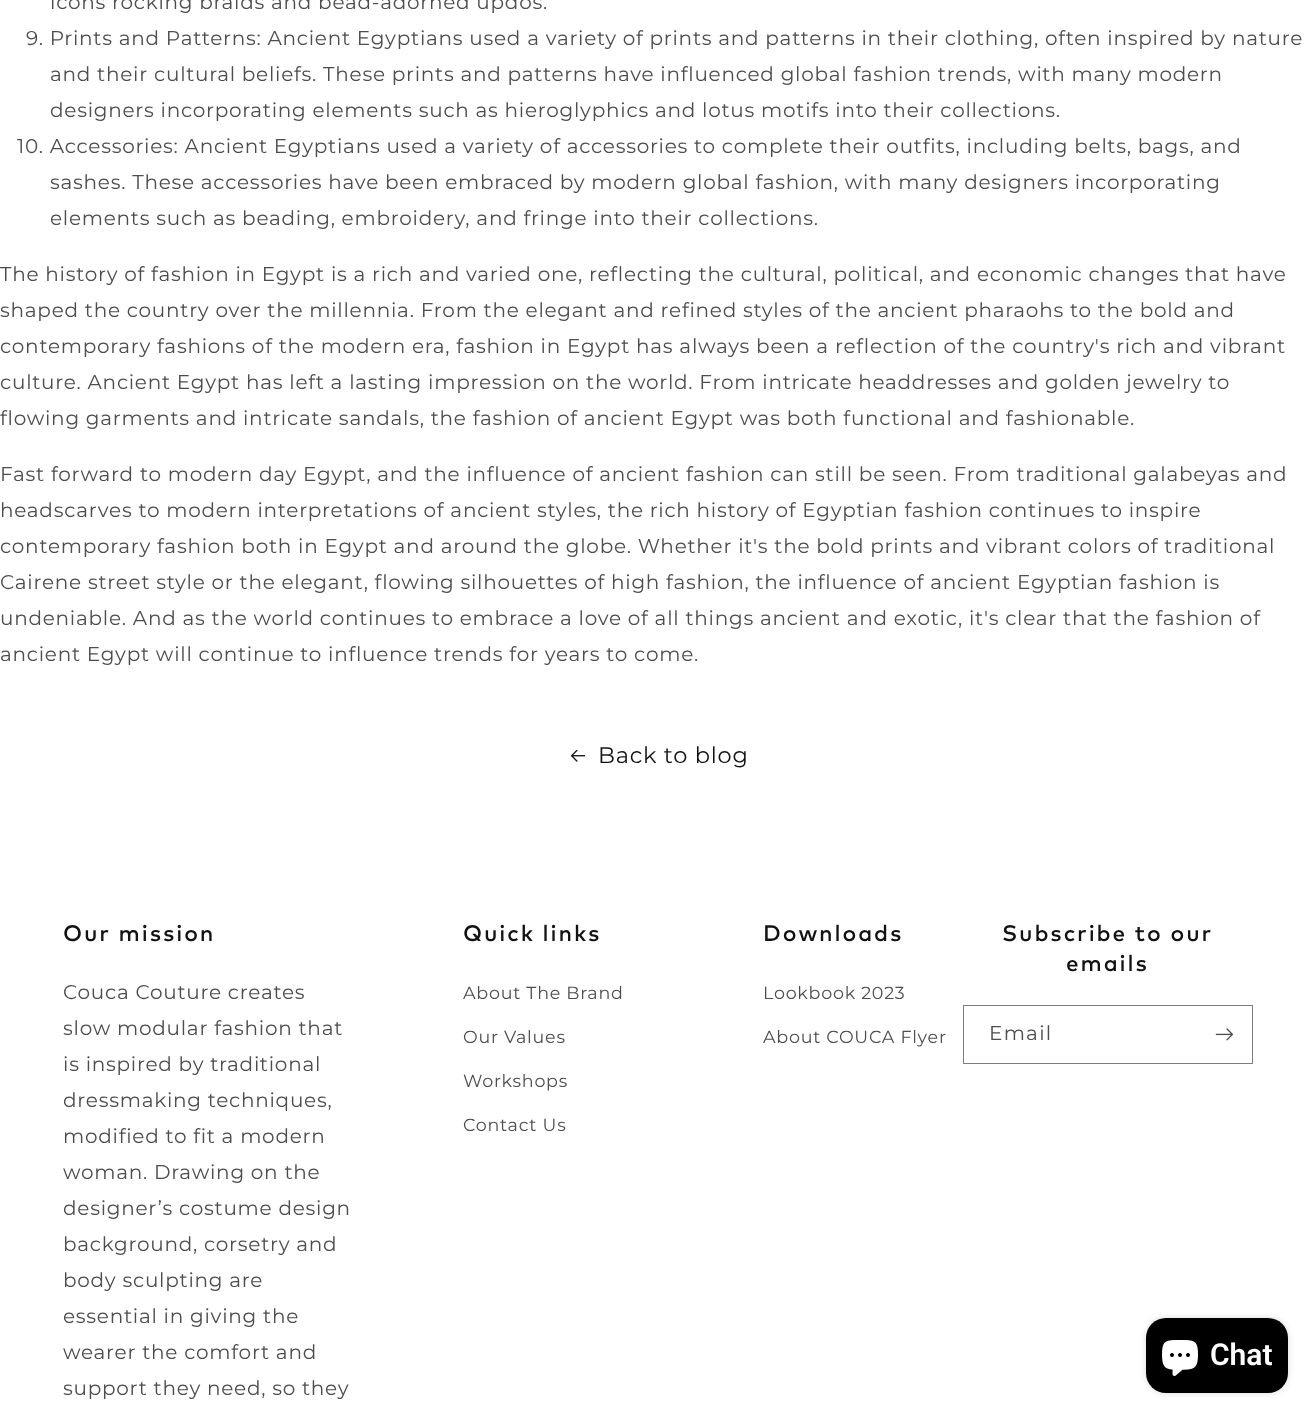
<!DOCTYPE html>
<meta charset="utf-8">
<style>body { margin: 0 } canvas { display: block }</style>
<canvas id="canvas" width="1314" height="1418"></canvas>
<img id="img1" src="images/1.png" hidden>
<img id="img2" src="images/2.png" hidden>
<img id="img3" src="images/3.png" hidden>
<script>
window.onload = function () {
    const canvas = document.getElementById('canvas');
    const context = canvas.getContext('2d');
    context.miterLimit = 4;
    context.fontKerning = 'normal';

    context.fillStyle = 'rgb(255, 255, 255)';
    context.fillRect(0, 0, 1314, 1418);
    context.drawImage(document.getElementById('img1'), 570, 750, 15, 12);
    context.strokeStyle = 'rgb(125, 125, 125)';
    context.strokeRect(963.5, 1005.5, 289, 58);
    context.drawImage(document.getElementById('img2'), 1215, 1028, 18, 13);
    context.fillStyle = 'rgba(0, 0, 0, 0.15)';
    context.filter = 'blur(3px)';
    context.beginPath();
    context.roundRect(1146, 1318, 142, 75, 20);
    context.fill();
    context.filter = 'none';
    context.fillStyle = 'rgb(0, 0, 0)';
    context.beginPath();
    context.roundRect(1146, 1318, 142, 75, 20);
    context.fill();
    context.drawImage(document.getElementById('img3'), 1162, 1340, 36, 36);
    context.letterSpacing = '0.75px';
    context.font = '20px Montserrat';
    context.fillStyle = 'rgb(77, 77, 77)';
    context.fillText('icons rocking braids and bead-adorned updos.', 50, 9);
    context.fillText('9. Prints and Patterns: Ancient Egyptians used a variety of prints and patterns in their clothing, often inspired by nature', 26, 45);
    context.fillText('and their cultural beliefs. These prints and patterns have influenced global fashion trends, with many modern', 50, 81);
    context.fillText('designers incorporating elements such as hieroglyphics and lotus motifs into their collections.', 50, 117);
    context.fillText('10. Accessories: Ancient Egyptians used a variety of accessories to complete their outfits, including belts, bags, and', 17, 153);
    context.fillText('sashes. These accessories have been embraced by modern global fashion, with many designers incorporating', 50, 189);
    context.fillText('elements such as beading, embroidery, and fringe into their collections.', 50, 225);
    context.fillText('The history of fashion in Egypt is a rich and varied one, reflecting the cultural, political, and economic changes that have', 0, 281);
    context.fillText('shaped the country over the millennia. From the elegant and refined styles of the ancient pharaohs to the bold and', 0, 317);
    context.fillText('contemporary fashions of the modern era, fashion in Egypt has always been a reflection of the country\'s rich and vibrant', 0, 353);
    context.fillText('culture. Ancient Egypt has left a lasting impression on the world. From intricate headdresses and golden jewelry to', 0, 389);
    context.fillText('flowing garments and intricate sandals, the fashion of ancient Egypt was both functional and fashionable.', 0, 425);
    context.fillText('Fast forward to modern day Egypt, and the influence of ancient fashion can still be seen. From traditional galabeyas and', 0, 481);
    context.fillText('headscarves to modern interpretations of ancient styles, the rich history of Egyptian fashion continues to inspire', 0, 517);
    context.fillText('contemporary fashion both in Egypt and around the globe. Whether it\'s the bold prints and vibrant colors of traditional', 0, 553);
    context.fillText('Cairene street style or the elegant, flowing silhouettes of high fashion, the influence of ancient Egyptian fashion is', 0, 589);
    context.fillText('undeniable. And as the world continues to embrace a love of all things ancient and exotic, it\'s clear that the fashion of', 0, 625);
    context.fillText('ancient Egypt will continue to influence trends for years to come.', 0, 661);
    context.font = '22.5px Montserrat';
    context.fillStyle = 'rgb(18, 18, 18)';
    context.fillText('Back to blog', 598, 763);
    context.letterSpacing = '1.9px';
    context.font = '500 22.5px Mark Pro';
    context.fillText('Our mission', 63, 941);
    context.letterSpacing = '0.75px';
    context.font = '20px Montserrat';
    context.fillStyle = 'rgb(77, 77, 77)';
    context.fillText('Couca Couture creates', 63, 999);
    context.fillText('slow modular fashion that', 63, 1035);
    context.fillText('is inspired by traditional', 63, 1071);
    context.fillText('dressmaking techniques,', 63, 1107);
    context.fillText('modified to fit a modern', 63, 1143);
    context.fillText('woman. Drawing on the', 63, 1179);
    context.fillText('designer’s costume design', 63, 1215);
    context.fillText('background, corsetry and', 63, 1251);
    context.fillText('body sculpting are', 63, 1287);
    context.fillText('essential in giving the', 63, 1323);
    context.fillText('wearer the comfort and', 63, 1359);
    context.fillText('support they need, so they', 63, 1395);
    context.letterSpacing = '1.9px';
    context.font = '500 22.5px Mark Pro';
    context.fillStyle = 'rgb(18, 18, 18)';
    context.fillText('Quick links', 463, 941);
    context.letterSpacing = '0.75px';
    context.font = '17.5px Montserrat';
    context.fillStyle = 'rgb(77, 77, 77)';
    context.fillText('About The Brand', 463, 999);
    context.fillText('Our Values', 463, 1043);
    context.fillText('Workshops', 463, 1087);
    context.fillText('Contact Us', 463, 1131);
    context.letterSpacing = '1.9px';
    context.font = '500 22.5px Mark Pro';
    context.fillStyle = 'rgb(18, 18, 18)';
    context.fillText('Downloads', 763, 941);
    context.letterSpacing = '0.75px';
    context.font = '17.5px Montserrat';
    context.fillStyle = 'rgb(77, 77, 77)';
    context.fillText('Lookbook 2023', 763, 999);
    context.fillText('About COUCA Flyer', 763, 1043);
    context.letterSpacing = '1.9px';
    context.font = '500 22.5px Mark Pro';
    context.fillStyle = 'rgb(18, 18, 18)';
    context.fillText('Subscribe to our', 1002, 941);
    context.fillText('emails', 1066, 971);
    context.letterSpacing = '1.25px';
    context.font = '20px Montserrat';
    context.fillStyle = 'rgb(77, 77, 77)';
    context.fillText('Email', 989, 1040);
    context.letterSpacing = '0px';
    context.font = '600 30px Roboto';
    context.fillStyle = 'rgb(255, 255, 255)';
    context.fillText('Chat', 1210, 1365);
};
</script>
